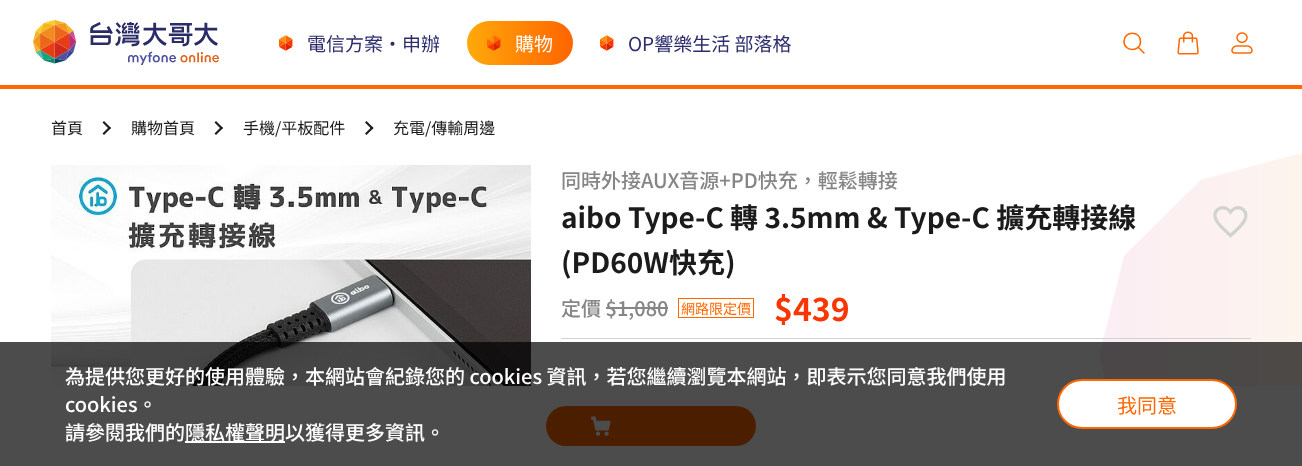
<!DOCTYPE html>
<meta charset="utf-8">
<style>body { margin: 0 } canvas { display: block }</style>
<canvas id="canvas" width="1302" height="466"></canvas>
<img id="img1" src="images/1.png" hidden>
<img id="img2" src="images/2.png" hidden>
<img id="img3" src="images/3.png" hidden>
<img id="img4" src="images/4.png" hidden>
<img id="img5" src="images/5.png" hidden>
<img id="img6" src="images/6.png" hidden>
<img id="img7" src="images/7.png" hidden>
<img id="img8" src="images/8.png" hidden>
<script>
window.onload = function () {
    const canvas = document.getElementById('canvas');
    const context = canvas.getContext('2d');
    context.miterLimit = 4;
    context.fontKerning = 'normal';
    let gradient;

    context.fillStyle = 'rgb(255, 255, 255)';
    context.fillRect(0, 0, 1302, 466);
    context.fillStyle = 'rgb(255, 103, 0)';
    context.fillRect(0, 85, 1302, 4);
    context.drawImage(document.getElementById('img1'), 33, 20, 186, 45);
    context.drawImage(document.getElementById('img2'), 279, 35, 14, 16);
    gradient = context.createLinearGradient(574, 41, 441, 45);
    gradient.addColorStop(0.04, 'rgb(255, 103, 0)');
    gradient.addColorStop(1, 'rgb(255, 186, 13)');
    context.fillStyle = gradient;
    context.beginPath();
    context.roundRect(467, 21, 106, 44, 22);
    context.fill();
    context.drawImage(document.getElementById('img3'), 487, 35, 14, 16);
    context.drawImage(document.getElementById('img2'), 600, 35, 14, 16);
    context.beginPath();
    context.moveTo(1144, 53);
    context.lineTo(1138, 47);
    context.moveTo(1140.5, 41.5);
    context.bezierCurveTo(1140.5, 52.5, 1123.5, 52, 1124, 41);
    context.bezierCurveTo(1124.5, 30.5, 1140.5, 30.5, 1140.5, 41.5);
    context.closePath();
    context.strokeStyle = 'rgb(255, 103, 0)';
    context.lineWidth = 1.5;
    context.lineCap = 'round';
    context.lineJoin = 'round';
    context.stroke();
    context.drawImage(document.getElementById('img4'), 1177, 31, 22, 24);
    context.drawImage(document.getElementById('img5'), 1231, 32, 22, 22);
    context.drawImage(document.getElementById('img6'), 1099, 154, 203, 232);
    context.fillStyle = 'rgb(27, 27, 27)';
    context.beginPath();
    context.moveTo(102.5, 122.5);
    context.lineTo(104, 121);
    context.lineTo(111, 128);
    context.lineTo(109.5, 129.5);
    context.closePath();
    context.fill();
    context.beginPath();
    context.moveTo(102.5, 133.5);
    context.lineTo(109.5, 126.5);
    context.lineTo(111, 128);
    context.lineTo(104, 135);
    context.closePath();
    context.fill();
    context.beginPath();
    context.moveTo(214.5, 122.5);
    context.lineTo(216, 121);
    context.lineTo(223, 128);
    context.lineTo(221.5, 129.5);
    context.closePath();
    context.fill();
    context.beginPath();
    context.moveTo(214.5, 133.5);
    context.lineTo(221.5, 126.5);
    context.lineTo(223, 128);
    context.lineTo(216, 135);
    context.closePath();
    context.fill();
    context.beginPath();
    context.moveTo(365, 122.5);
    context.lineTo(366.5, 121);
    context.lineTo(373.5, 128);
    context.lineTo(372, 129.5);
    context.closePath();
    context.fill();
    context.beginPath();
    context.moveTo(365, 133.5);
    context.lineTo(372, 126.5);
    context.lineTo(373.5, 128);
    context.lineTo(366.5, 135);
    context.closePath();
    context.fill();
    context.drawImage(document.getElementById('img7'), 51, 165, 480, 221);
    context.fillStyle = 'rgb(210, 210, 210)';
    context.fillRect(561, 338, 690, 1);
    context.beginPath();
    context.moveTo(1229, 234);
    context.bezierCurveTo(1224.5, 230, 1217.5, 224.5, 1215.5, 218.5);
    context.bezierCurveTo(1213, 211.5, 1219.5, 205.5, 1226.5, 208.5);
    context.bezierCurveTo(1228, 209.5, 1229.5, 210.5, 1230.5, 212);
    context.bezierCurveTo(1231.5, 210.5, 1233, 209.5, 1234.5, 208.5);
    context.bezierCurveTo(1242, 205, 1248, 212.5, 1245, 219.5);
    context.bezierCurveTo(1242.5, 225.5, 1235.5, 231, 1230.5, 235.5);
    context.closePath();
    context.strokeStyle = 'rgb(210, 210, 210)';
    context.lineWidth = 3.2;
    context.lineCap = 'butt';
    context.lineJoin = 'miter';
    context.stroke();
    context.fillStyle = 'rgb(134, 134, 134)';
    context.fillRect(606, 307, 62, 2);
    context.strokeStyle = 'rgb(255, 103, 0)';
    context.lineWidth = 1;
    context.strokeRect(678.5, 298.5, 75, 19);
    context.fillStyle = 'rgb(255, 103, 0)';
    context.beginPath();
    context.roundRect(546, 406, 210, 40, 20);
    context.fill();
    context.drawImage(document.getElementById('img8'), 591, 416, 20, 20);
    context.fillStyle = 'rgba(0, 0, 0, 0.7)';
    context.fillRect(0, 342, 1302, 124);
    context.fillStyle = 'rgb(255, 255, 255)';
    context.fillRect(185, 441, 100, 2);
    context.beginPath();
    context.roundRect(1058, 380, 178, 48, 24);
    context.fill();
    context.lineWidth = 2;
    context.stroke();
    context.font = '19px Noto Sans TC';
    context.fillStyle = 'rgb(45, 45, 108)';
    context.fillText('電信方案•申辦', 307, 51);
    context.fillStyle = 'rgb(255, 255, 255)';
    context.fillText('購物', 515, 51);
    context.fillStyle = 'rgb(45, 45, 108)';
    context.fillText('OP響樂生活 部落格', 628, 51);
    context.font = '16px Noto Sans TC';
    context.fillStyle = 'rgb(27, 27, 27)';
    context.fillText('首頁', 51, 134);
    context.fillText('購物首頁', 131, 134);
    context.fillText('手機/平板配件', 243, 134);
    context.fillText('充電/傳輸周邊', 393, 134);
    context.font = '500 20px Noto Sans TC';
    context.fillStyle = 'rgb(134, 134, 134)';
    context.fillText('同時外接AUX音源+PD快充，輕鬆轉接', 561, 188);
    context.font = 'bold 28px Noto Sans TC';
    context.fillStyle = 'rgb(27, 27, 27)';
    context.fillText('aibo Type-C 轉 3.5mm & Type-C 擴充轉接線', 561, 228);
    context.fillText('(PD60W快充)', 561, 273);
    context.font = '500 20px Noto Sans TC';
    context.fillStyle = 'rgb(134, 134, 134)';
    context.fillText('定價 $1,080', 561, 316);
    context.font = '14px Noto Sans TC';
    context.fillStyle = 'rgb(255, 103, 0)';
    context.fillText('網路限定價', 681, 314);
    context.font = 'bold 32px Noto Sans TC';
    context.fillStyle = 'rgb(247, 54, 3)';
    context.fillText('$439', 774, 321);
    context.font = '500 20px Noto Sans TC';
    context.fillStyle = 'rgb(255, 255, 255)';
    context.fillText('為提供您更好的使用體驗，本網站會紀錄您的 cookies 資訊，若您繼續瀏覽本網站，即表示您同意我們使用', 65, 384);
    context.fillText('cookies。', 65, 412);
    context.fillText('請參閱我們的', 65, 440);
    context.fillText('隱私權聲明以獲得更多資訊。', 185, 440);
    context.font = '20px Noto Sans TC';
    context.fillStyle = 'rgb(255, 103, 0)';
    context.fillText('我同意', 1117, 413);
};
</script>
